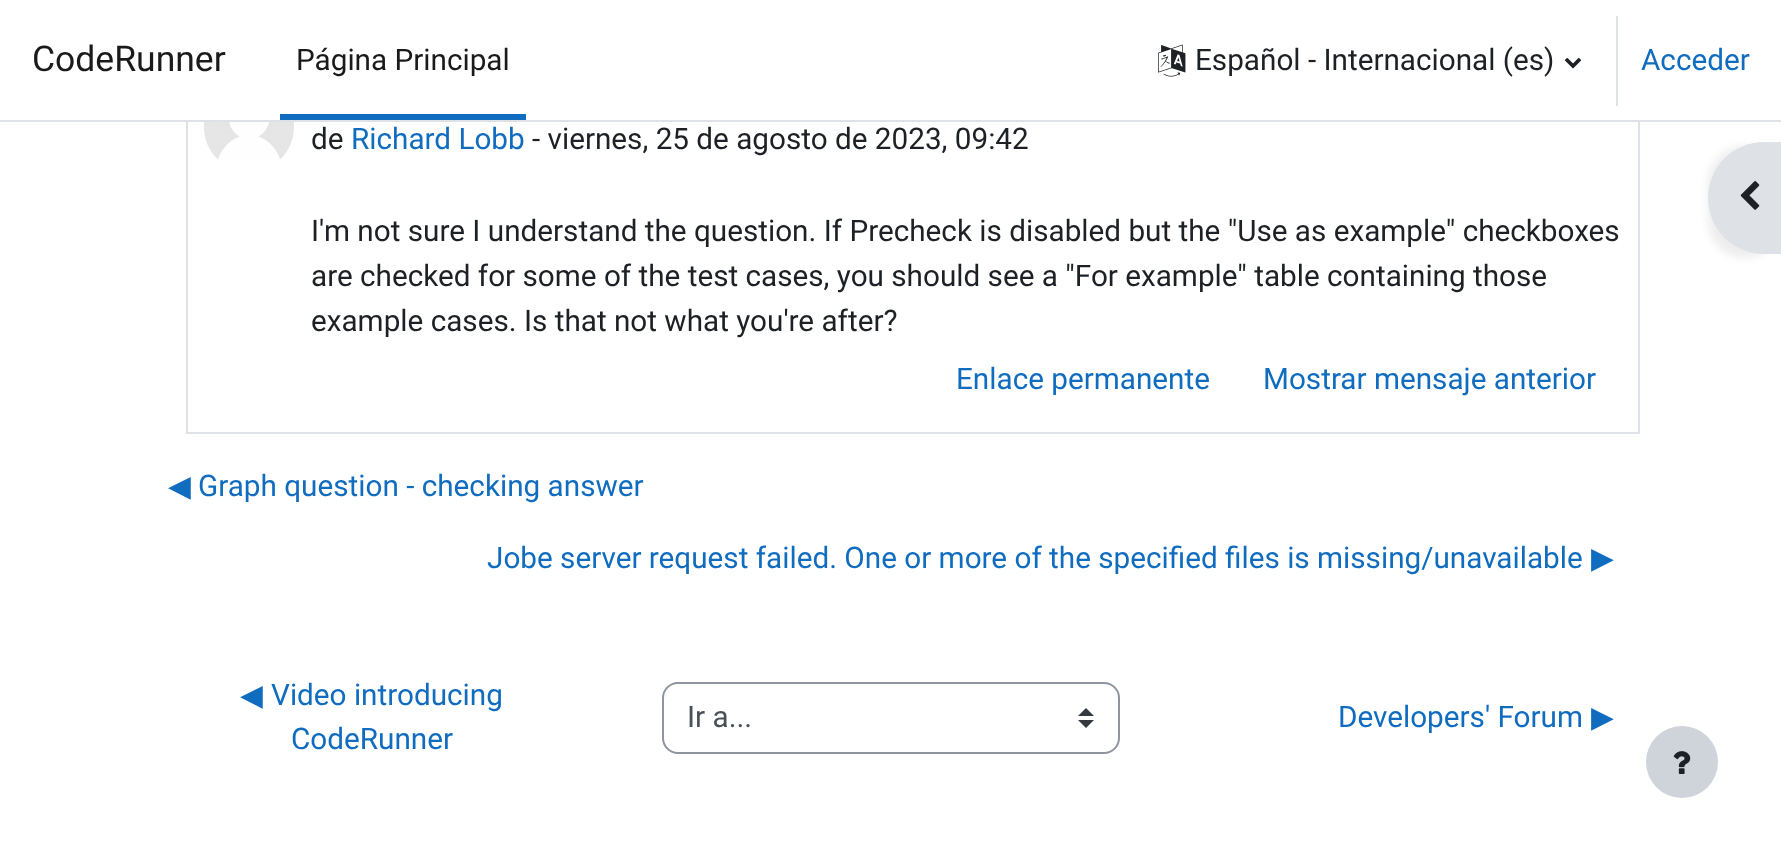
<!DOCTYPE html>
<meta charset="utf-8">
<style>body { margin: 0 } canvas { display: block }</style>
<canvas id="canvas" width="1781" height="862"></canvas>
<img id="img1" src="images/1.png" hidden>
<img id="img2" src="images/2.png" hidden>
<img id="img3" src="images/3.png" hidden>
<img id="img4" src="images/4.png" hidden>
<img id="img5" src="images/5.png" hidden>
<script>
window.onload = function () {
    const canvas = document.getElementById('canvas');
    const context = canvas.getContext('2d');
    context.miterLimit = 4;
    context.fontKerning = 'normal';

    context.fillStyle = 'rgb(255, 255, 255)';
    context.fillRect(0, 0, 1781, 862);
    context.strokeStyle = 'rgb(222, 226, 230)';
    context.lineWidth = 2;
    context.strokeRect(187, 65, 1452, 368);
    context.fillRect(186, 64, 1454, 56);
    context.fillStyle = 'rgb(222, 226, 230)';
    context.fillRect(0, 120, 1781, 2);
    context.fillStyle = 'rgb(15, 108, 191)';
    context.fillRect(280, 114, 246, 6);
    context.drawImage(document.getElementById('img1'), 1158, 44, 28, 33);
    context.drawImage(document.getElementById('img2'), 1564, 58, 18, 11);
    context.fillStyle = 'rgb(222, 226, 230)';
    context.fillRect(1616, 16, 2, 90);
    context.drawImage(document.getElementById('img3'), 204, 122, 90, 38);
    context.fillStyle = 'rgb(52, 58, 64)';
    context.beginPath();
    context.moveTo(1086, 708);
    context.lineTo(1078, 716);
    context.lineTo(1094, 716);
    context.closePath();
    context.moveTo(1086, 728);
    context.lineTo(1078, 720);
    context.lineTo(1094, 720);
    context.closePath();
    context.fill();
    context.beginPath();
    context.roundRect(663, 683, 456, 70, 15);
    context.strokeStyle = 'rgb(143, 149, 158)';
    context.stroke();
    context.fillStyle = 'rgba(0, 0, 0, 0.07)';
    context.filter = 'blur(4px)';
    context.beginPath();
    context.roundRect(1708, 146, 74, 112, 56);
    context.fill();
    context.filter = 'none';
    context.fillStyle = 'rgb(222, 226, 230)';
    context.beginPath();
    context.moveTo(1764, 142);
    context.lineTo(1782, 142);
    context.lineTo(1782, 254);
    context.lineTo(1764, 254);
    context.bezierCurveTo(1733, 254, 1708, 229, 1708, 198);
    context.bezierCurveTo(1708, 167, 1733, 142, 1764, 142);
    context.closePath();
    context.fill();
    context.drawImage(document.getElementById('img4'), 1740, 181, 20, 29);
    context.fillStyle = 'rgb(206, 212, 218)';
    context.beginPath();
    context.arc(1682, 762, 36, 0, 2 * Math.PI);
    context.fill();
    context.drawImage(document.getElementById('img5'), 1673, 751, 18, 23);
    context.font = '35.5px Roboto';
    context.fillStyle = 'rgb(26, 26, 26)';
    context.fillText('CodeRunner', 32, 71);
    context.font = '29.7px Roboto';
    context.fillText('Página Principal', 296, 70);
    context.fillStyle = 'rgb(29, 33, 37)';
    context.fillText('Español - Internacional (es)', 1195, 70);
    context.fillStyle = 'rgb(15, 108, 191)';
    context.fillText('Acceder', 1641, 70);
    context.fillStyle = 'rgb(29, 33, 37)';
    context.fillText('de', 311, 149);
    context.fillStyle = 'rgb(15, 108, 191)';
    context.fillText('Richard Lobb', 351, 149);
    context.fillStyle = 'rgb(29, 33, 37)';
    context.fillText('- viernes, 25 de agosto de 2023, 09:42', 532, 149);
    context.fillText('I\'m not sure I understand the question. If Precheck is disabled but the "Use as example" checkboxes', 311, 241);
    context.fillText('are checked for some of the test cases, you should see a "For example" table containing those', 311, 286);
    context.fillText('example cases. Is that not what you\'re after?', 311, 331);
    context.fillStyle = 'rgb(15, 108, 191)';
    context.fillText('Enlace permanente', 956, 389);
    context.fillText('Mostrar mensaje anterior', 1263, 389);
    context.font = '29.7px DejaVu Sans';
    context.fillText('◀︎', 168, 496);
    context.font = '29.7px Roboto';
    context.fillText('Graph question - checking answer', 198, 496);
    context.fillText('Jobe server request failed. One or more of the specified files is missing/unavailable', 487, 568);
    context.font = '29.7px DejaVu Sans';
    context.fillText('▶︎', 1591, 568);
    context.fillText('◀︎', 240, 705);
    context.font = '29.7px Roboto';
    context.fillText('Video introducing', 271, 705);
    context.fillText('CodeRunner', 291, 749);
    context.fillStyle = 'rgb(73, 80, 87)';
    context.fillText('Ir a...', 687, 727);
    context.fillStyle = 'rgb(15, 108, 191)';
    context.fillText('Developers\' Forum', 1338, 727);
    context.font = '29.7px DejaVu Sans';
    context.fillText('▶︎', 1591, 727);
};
</script>
